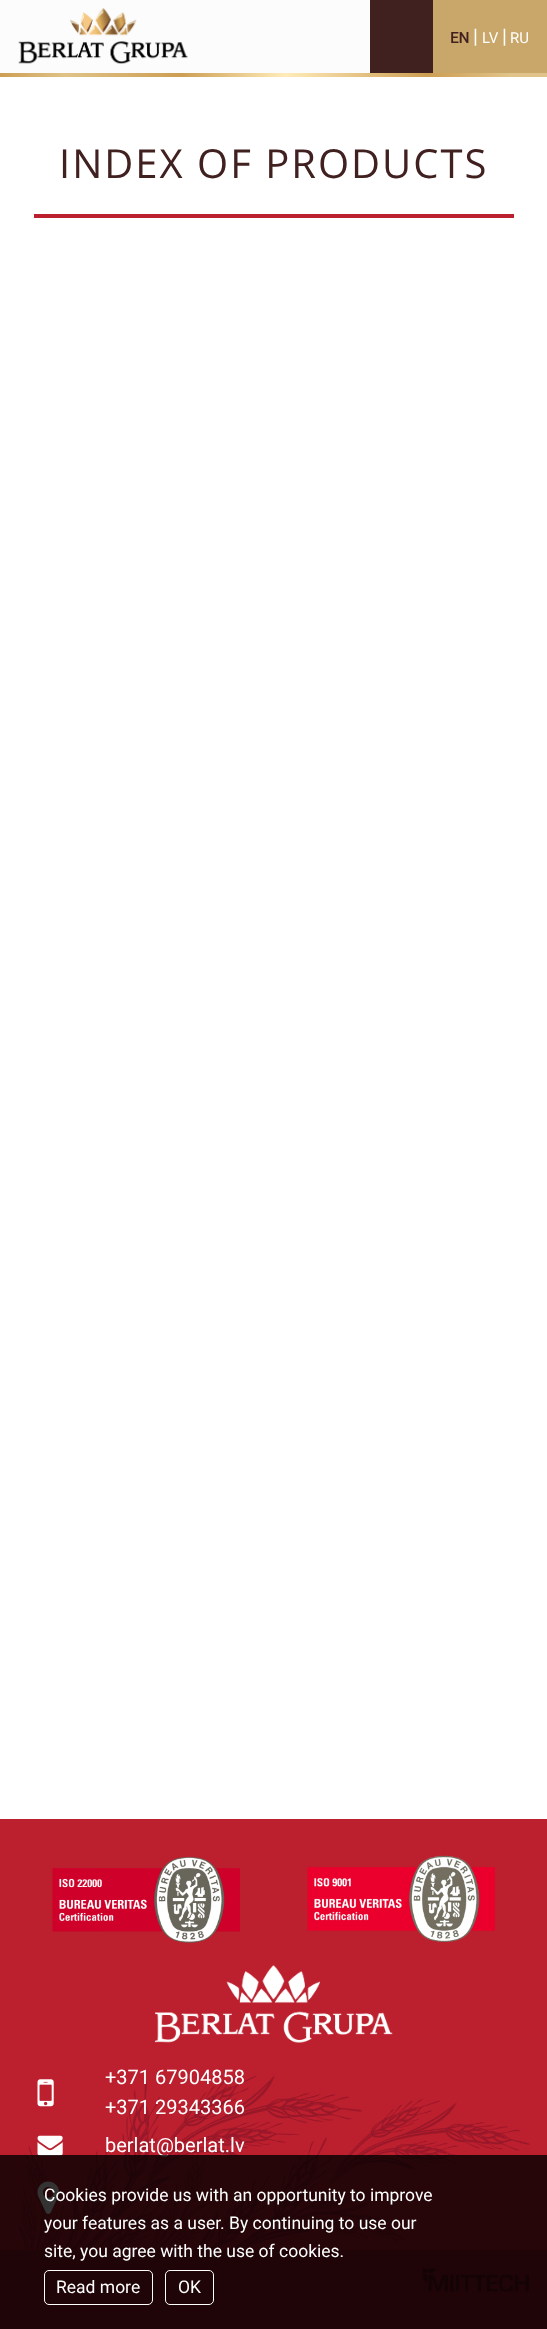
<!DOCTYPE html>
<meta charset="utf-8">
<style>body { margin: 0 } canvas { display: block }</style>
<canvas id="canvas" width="547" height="2329"></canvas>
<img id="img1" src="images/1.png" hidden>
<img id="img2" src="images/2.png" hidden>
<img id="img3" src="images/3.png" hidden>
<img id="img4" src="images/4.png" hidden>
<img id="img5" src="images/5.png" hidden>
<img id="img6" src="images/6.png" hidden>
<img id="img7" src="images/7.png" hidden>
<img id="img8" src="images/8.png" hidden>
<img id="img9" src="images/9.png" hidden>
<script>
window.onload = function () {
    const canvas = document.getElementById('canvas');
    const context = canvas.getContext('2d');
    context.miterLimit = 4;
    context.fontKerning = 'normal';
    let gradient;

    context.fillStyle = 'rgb(255, 255, 255)';
    context.fillRect(0, 0, 547, 2329);
    context.fillStyle = 'rgb(252, 252, 252)';
    context.fillRect(0, 0, 370, 73);
    context.drawImage(document.getElementById('img1'), 18, 8, 170, 56);
    context.fillStyle = 'rgb(65, 32, 32)';
    context.fillRect(370, 0, 63, 73);
    context.fillStyle = 'rgb(201, 166, 105)';
    context.fillRect(433, 0, 114, 73);
    gradient = context.createLinearGradient(0, 74, 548, 74);
    gradient.addColorStop(0, 'rgb(205, 158, 83)');
    gradient.addColorStop(0.12, 'rgb(224, 195, 136)');
    gradient.addColorStop(0.33, 'rgb(205, 158, 83)');
    gradient.addColorStop(0.52, 'rgb(255, 236, 186)');
    gradient.addColorStop(0.78, 'rgb(205, 158, 83)');
    gradient.addColorStop(0.93, 'rgb(224, 195, 136)');
    context.fillStyle = gradient;
    context.fillRect(0, 73, 547, 4);
    context.fillStyle = 'rgb(188, 31, 45)';
    context.fillRect(34, 214, 480, 4);
    context.fillRect(0, 1819, 547, 431);
    context.drawImage(document.getElementById('img2'), 18, 2075, 512, 175);
    context.drawImage(document.getElementById('img3'), 52, 1857, 188, 86);
    context.drawImage(document.getElementById('img4'), 307, 1855, 188, 87);
    context.drawImage(document.getElementById('img5'), 155, 1965, 238, 78);
    context.drawImage(document.getElementById('img6'), 37, 2079, 17, 28);
    context.drawImage(document.getElementById('img7'), 37, 2135, 26, 21);
    context.drawImage(document.getElementById('img8'), 37, 2181, 23, 33);
    context.fillStyle = 'rgb(157, 25, 43)';
    context.fillRect(0, 2250, 547, 79);
    context.drawImage(document.getElementById('img9'), 422, 2268, 107, 24);
    context.font = 'bold 15px Roboto';
    context.fillStyle = 'rgb(65, 32, 32)';
    context.fillText('EN', 450, 43);
    context.font = '20px Roboto';
    context.fillStyle = 'rgb(255, 255, 255)';
    context.fillText('|', 473, 43);
    context.font = '15px Roboto';
    context.fillText('LV', 482, 43);
    context.font = '20px Roboto';
    context.fillText('|', 502, 43);
    context.font = '15px Roboto';
    context.fillText('RU', 510, 43);
    context.letterSpacing = '2px';
    context.font = '40px Open Sans';
    context.fillStyle = 'rgb(65, 32, 32)';
    context.fillText('INDEX OF PRODUCTS', 59, 178);
    context.letterSpacing = '0px';
    context.font = '20px Roboto';
    context.fillStyle = 'rgb(255, 255, 255)';
    context.fillText('+371 67904858', 105, 2084);
    context.fillText('+371 29343366', 105, 2114);
    context.fillText('berlat@berlat.lv', 105, 2152);
    context.fillStyle = 'rgba(0, 0, 0, 0.8)';
    context.fillRect(0, 2155, 547, 174);
    context.font = '17.5px Roboto';
    context.fillStyle = 'rgb(255, 255, 255)';
    context.fillText('Cookies provide us with an opportunity to improve', 44, 2201);
    context.fillText('your features as a user. By continuing to use our', 44, 2229);
    context.fillText('site, you agree with the use of cookies.', 44, 2257);
    context.beginPath();
    context.roundRect(44.5, 2270.5, 108, 34, 4.5);
    context.strokeStyle = 'rgb(255, 255, 255)';
    context.stroke();
    context.fillText('Read more', 56, 2293);
    context.beginPath();
    context.roundRect(165.5, 2270.5, 48, 34, 4.5);
    context.stroke();
    context.fillText('OK', 178, 2293);
};
</script>
